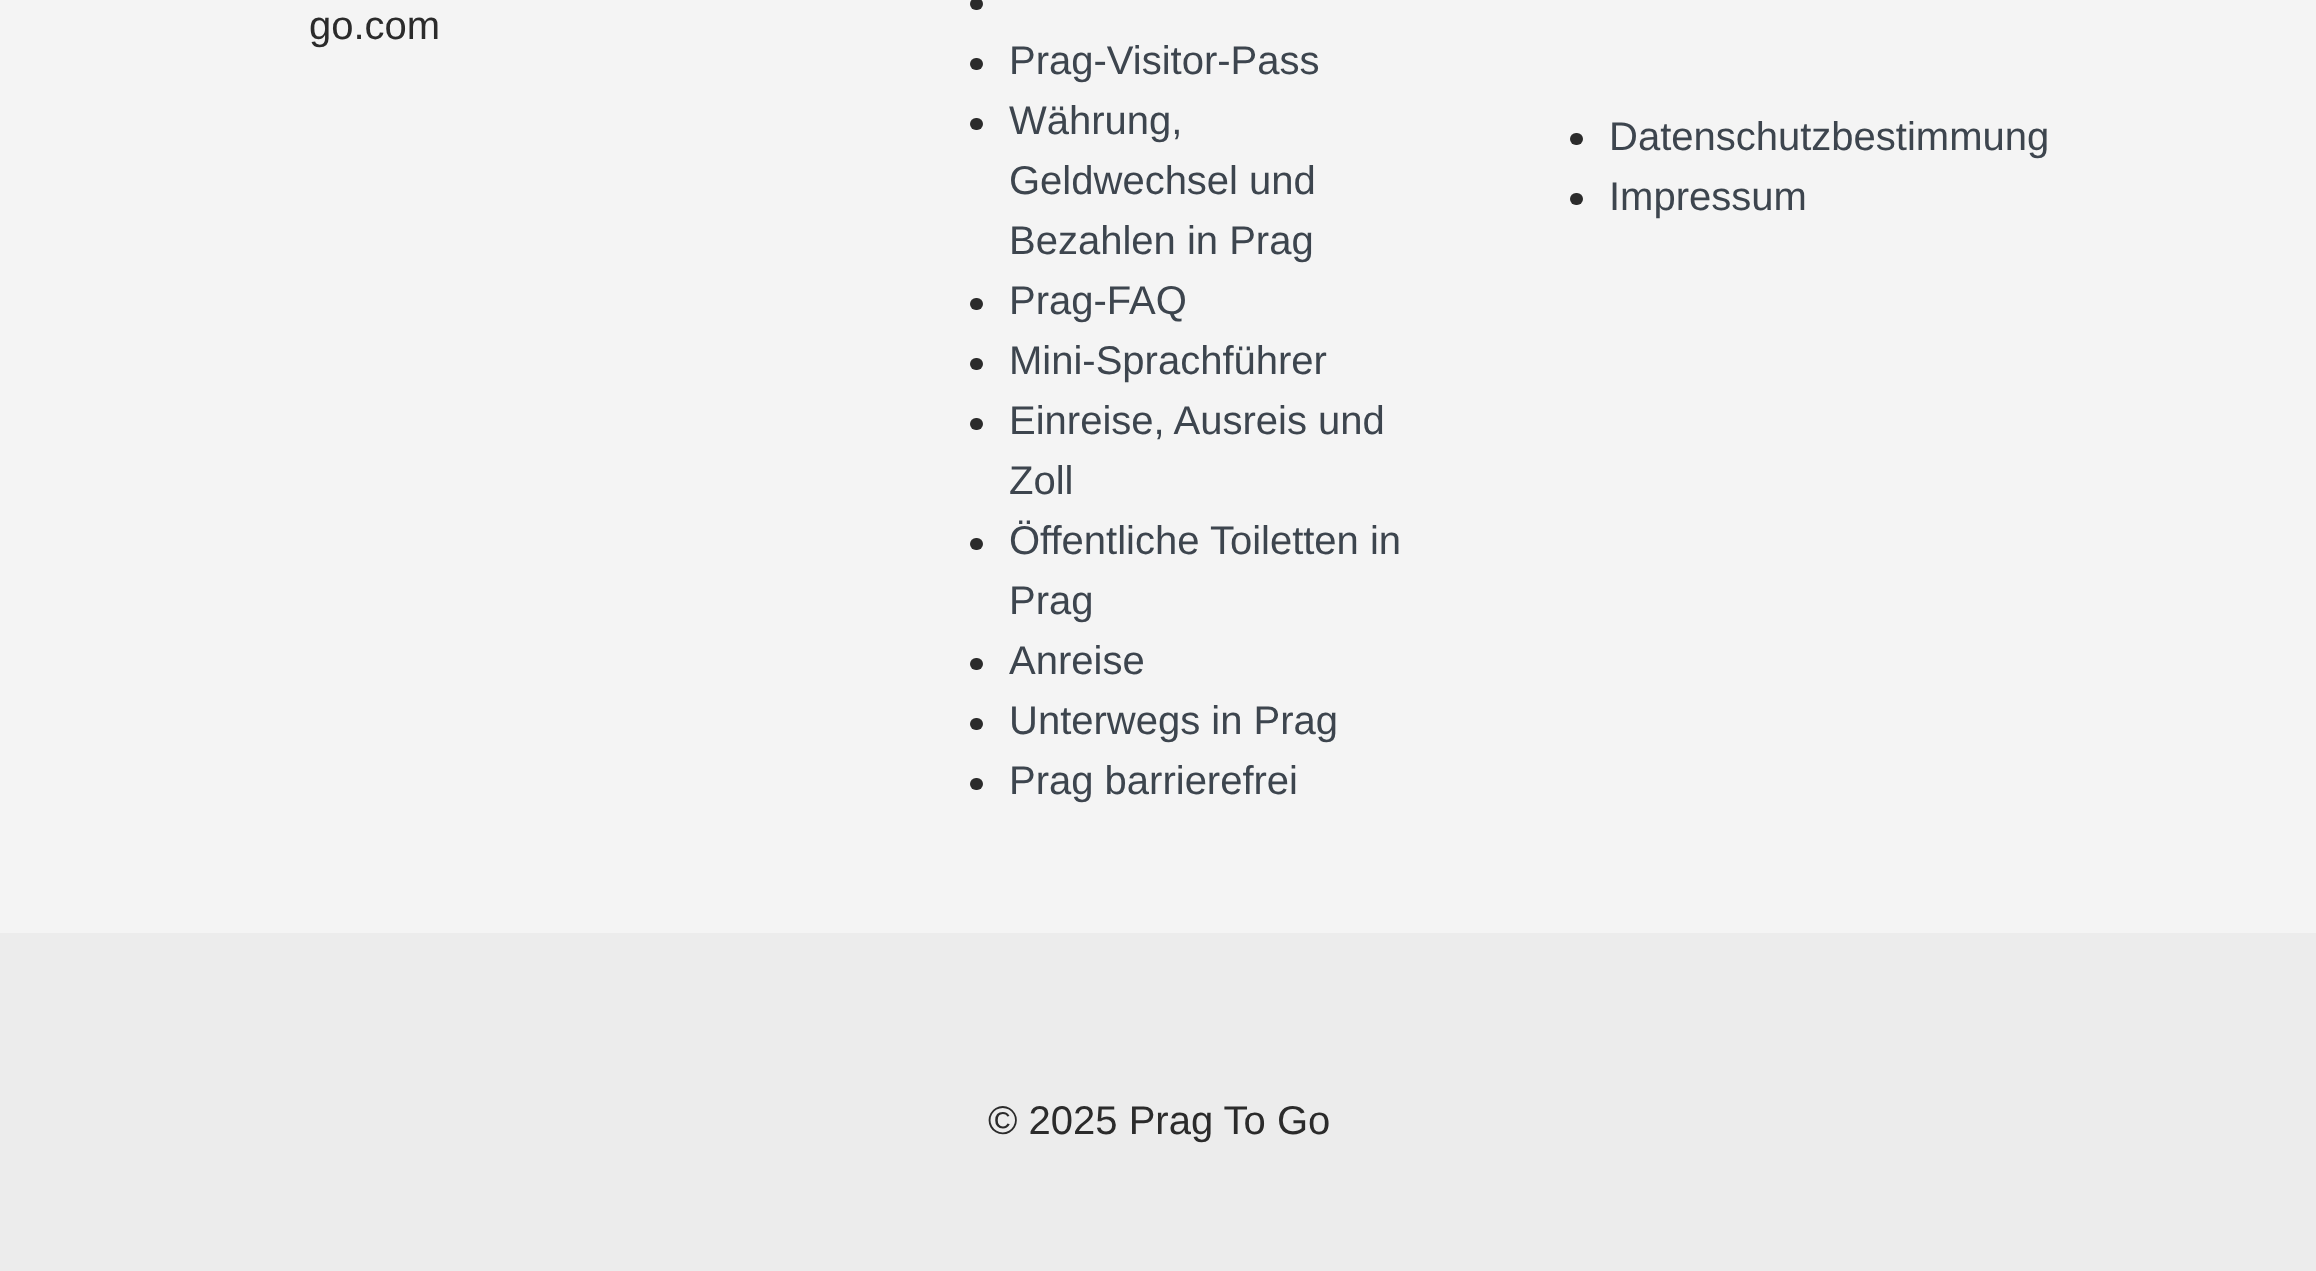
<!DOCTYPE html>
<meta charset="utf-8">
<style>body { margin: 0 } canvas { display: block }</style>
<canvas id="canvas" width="2316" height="1271"></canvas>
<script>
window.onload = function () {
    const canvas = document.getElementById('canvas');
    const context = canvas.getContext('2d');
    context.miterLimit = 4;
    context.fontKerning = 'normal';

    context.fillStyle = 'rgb(244, 244, 244)';
    context.fillRect(0, 0, 2316, 1271);
    context.fillStyle = 'rgb(43, 43, 43)';
    context.beginPath();
    context.roundRect(970, -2, 13, 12, 6);
    context.fill();
    context.beginPath();
    context.roundRect(970, 58, 13, 12, 6);
    context.fill();
    context.beginPath();
    context.roundRect(970, 118, 13, 12, 6);
    context.fill();
    context.beginPath();
    context.roundRect(970, 298, 13, 12, 6);
    context.fill();
    context.beginPath();
    context.roundRect(970, 358, 13, 12, 6);
    context.fill();
    context.beginPath();
    context.roundRect(970, 418, 13, 12, 6);
    context.fill();
    context.beginPath();
    context.roundRect(970, 538, 13, 12, 6);
    context.fill();
    context.beginPath();
    context.roundRect(970, 658, 13, 12, 6);
    context.fill();
    context.beginPath();
    context.roundRect(970, 718, 13, 12, 6);
    context.fill();
    context.beginPath();
    context.roundRect(970, 778, 13, 12, 6);
    context.fill();
    context.beginPath();
    context.roundRect(1570, 133, 13, 12, 6);
    context.fill();
    context.beginPath();
    context.roundRect(1570, 193, 13, 12, 6);
    context.fill();
    context.fillStyle = 'rgb(236, 236, 236)';
    context.fillRect(0, 933, 2316, 338);
    context.font = '40px Liberation Sans';
    context.fillStyle = 'rgb(43, 43, 43)';
    context.fillText('go.com', 309, 39);
    context.fillStyle = 'rgb(61, 69, 78)';
    context.fillText('Prag-Visitor-Pass', 1009, 74);
    context.fillText('Währung,', 1009, 134);
    context.fillText('Geldwechsel und', 1009, 194);
    context.fillText('Bezahlen in Prag', 1009, 254);
    context.fillText('Prag-FAQ', 1009, 314);
    context.fillText('Mini-Sprachführer', 1009, 374);
    context.fillText('Einreise, Ausreis und', 1009, 434);
    context.fillText('Zoll', 1009, 494);
    context.fillText('Öffentliche Toiletten in', 1009, 554);
    context.fillText('Prag', 1009, 614);
    context.fillText('Anreise', 1009, 674);
    context.fillText('Unterwegs in Prag', 1009, 734);
    context.fillText('Prag barrierefrei', 1009, 794);
    context.fillText('Datenschutzbestimmung', 1609, 150);
    context.fillText('Impressum', 1609, 210);
    context.fillStyle = 'rgb(43, 43, 43)';
    context.fillText('© 2025 Prag To Go', 988, 1134);
};
</script>
